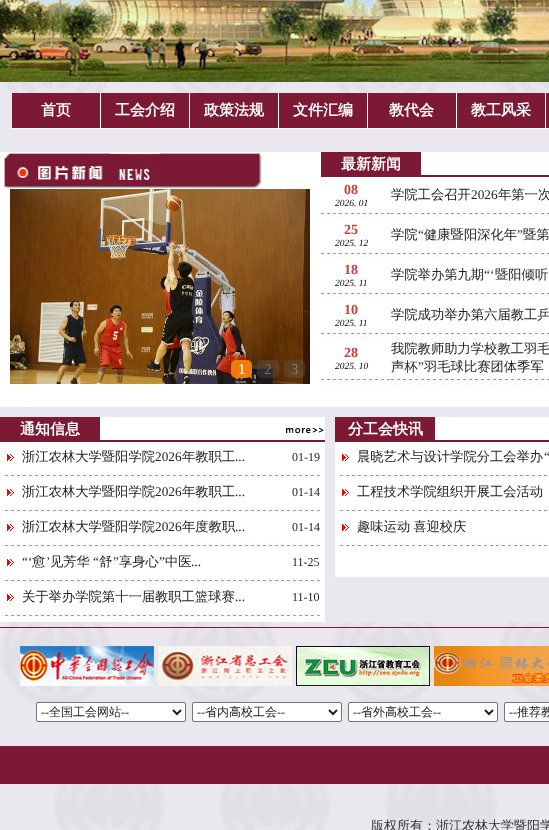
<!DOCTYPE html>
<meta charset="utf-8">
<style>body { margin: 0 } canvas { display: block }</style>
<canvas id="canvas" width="549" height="830"></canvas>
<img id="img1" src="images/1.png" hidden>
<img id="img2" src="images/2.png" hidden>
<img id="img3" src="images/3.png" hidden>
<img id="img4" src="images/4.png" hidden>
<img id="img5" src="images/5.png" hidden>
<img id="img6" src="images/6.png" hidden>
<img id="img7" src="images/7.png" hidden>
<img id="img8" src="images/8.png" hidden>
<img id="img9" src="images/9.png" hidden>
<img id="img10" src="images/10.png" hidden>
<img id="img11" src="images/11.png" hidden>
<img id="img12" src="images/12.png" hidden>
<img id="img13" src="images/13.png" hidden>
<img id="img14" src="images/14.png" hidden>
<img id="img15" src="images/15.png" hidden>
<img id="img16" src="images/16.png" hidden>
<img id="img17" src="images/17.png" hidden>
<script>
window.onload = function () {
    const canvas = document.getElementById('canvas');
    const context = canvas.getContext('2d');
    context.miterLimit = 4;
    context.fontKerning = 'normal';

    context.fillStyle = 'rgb(255, 255, 255)';
    context.fillRect(0, 0, 549, 830);
    context.drawImage(document.getElementById('img1'), 0, 82, 549, 748);
    context.drawImage(document.getElementById('img2'), 0, 0, 549, 82);
    context.fillStyle = 'rgb(124, 25, 53)';
    context.fillRect(12, 93, 88, 35);
    context.fillStyle = 'rgb(255, 255, 255)';
    context.fillRect(100, 93, 1, 36);
    context.fillRect(12, 128, 89, 1);
    context.fillStyle = 'rgb(124, 25, 53)';
    context.fillRect(101, 93, 88, 35);
    context.fillStyle = 'rgb(255, 255, 255)';
    context.fillRect(189, 93, 1, 36);
    context.fillRect(101, 128, 89, 1);
    context.fillStyle = 'rgb(124, 25, 53)';
    context.fillRect(190, 93, 88, 35);
    context.fillStyle = 'rgb(255, 255, 255)';
    context.fillRect(278, 93, 1, 36);
    context.fillRect(190, 128, 89, 1);
    context.fillStyle = 'rgb(124, 25, 53)';
    context.fillRect(279, 93, 88, 35);
    context.fillStyle = 'rgb(255, 255, 255)';
    context.fillRect(367, 93, 1, 36);
    context.fillRect(279, 128, 89, 1);
    context.fillStyle = 'rgb(124, 25, 53)';
    context.fillRect(368, 93, 88, 35);
    context.fillStyle = 'rgb(255, 255, 255)';
    context.fillRect(456, 93, 1, 36);
    context.fillRect(368, 128, 89, 1);
    context.fillStyle = 'rgb(124, 25, 53)';
    context.fillRect(457, 93, 88, 35);
    context.fillStyle = 'rgb(255, 255, 255)';
    context.fillRect(545, 93, 1, 36);
    context.fillRect(457, 128, 92, 1);
    context.fillStyle = 'rgb(124, 25, 53)';
    context.fillRect(546, 93, 3, 35);
    context.fillStyle = 'rgb(255, 255, 255)';
    context.fillRect(0, 152, 549, 255);
    context.drawImage(document.getElementById('img3'), 10, 189, 300, 195);
    context.fillStyle = 'rgb(241, 123, 10)';
    context.beginPath();
    context.roundRect(231, 360, 21, 18, 5);
    context.fill();
    context.fillStyle = 'rgba(102, 102, 102, 0.3)';
    context.beginPath();
    context.roundRect(257, 360, 22, 18, 5);
    context.fill();
    context.beginPath();
    context.roundRect(284, 360, 21, 18, 5);
    context.fill();
    context.drawImage(document.getElementById('img4'), 1, 153, 262, 35);
    context.fillStyle = 'rgb(124, 25, 53)';
    context.fillRect(321, 152, 100, 25);
    context.fillStyle = 'rgb(125, 18, 50)';
    context.fillRect(421, 175, 128, 2);
    context.drawImage(document.getElementById('img5'), 321, 210, 59, 10);
    context.drawImage(document.getElementById('img6'), 381, 210, 10, 10);
    context.drawImage(document.getElementById('img7'), 391, 210, 158, 10);
    context.drawImage(document.getElementById('img5'), 321, 250, 59, 10);
    context.drawImage(document.getElementById('img6'), 381, 250, 10, 10);
    context.drawImage(document.getElementById('img7'), 391, 250, 158, 10);
    context.drawImage(document.getElementById('img5'), 321, 290, 59, 10);
    context.drawImage(document.getElementById('img6'), 381, 290, 10, 10);
    context.drawImage(document.getElementById('img7'), 391, 290, 158, 10);
    context.drawImage(document.getElementById('img5'), 321, 330, 59, 10);
    context.drawImage(document.getElementById('img6'), 381, 330, 10, 10);
    context.drawImage(document.getElementById('img7'), 391, 330, 158, 10);
    context.drawImage(document.getElementById('img5'), 321, 376, 59, 10);
    context.drawImage(document.getElementById('img6'), 381, 376, 10, 10);
    context.drawImage(document.getElementById('img7'), 391, 376, 158, 10);
    context.fillStyle = 'rgb(234, 231, 239)';
    context.fillRect(29, 407, 520, 7);
    context.fillRect(325, 454, 224, 168);
    context.fillStyle = 'rgb(124, 25, 53)';
    context.fillRect(0, 417, 100, 25);
    context.drawImage(document.getElementById('img8'), 100, 417, 225, 25);
    context.drawImage(document.getElementById('img9'), 286, 427, 38, 7);
    context.fillStyle = 'rgb(255, 255, 255)';
    context.fillRect(0, 442, 325, 180);
    context.drawImage(document.getElementById('img10'), 7, 454, 7, 7);
    context.drawImage(document.getElementById('img11'), 5, 472, 315, 5);
    context.drawImage(document.getElementById('img10'), 7, 489, 7, 7);
    context.drawImage(document.getElementById('img11'), 5, 507, 315, 5);
    context.drawImage(document.getElementById('img10'), 7, 524, 7, 7);
    context.drawImage(document.getElementById('img11'), 5, 542, 315, 5);
    context.drawImage(document.getElementById('img10'), 7, 559, 7, 7);
    context.drawImage(document.getElementById('img11'), 5, 577, 315, 5);
    context.drawImage(document.getElementById('img10'), 7, 594, 7, 7);
    context.drawImage(document.getElementById('img11'), 5, 612, 315, 5);
    context.fillStyle = 'rgb(124, 25, 53)';
    context.fillRect(335, 417, 100, 25);
    context.drawImage(document.getElementById('img12'), 435, 417, 114, 25);
    context.fillStyle = 'rgb(255, 255, 255)';
    context.fillRect(335, 442, 214, 135);
    context.drawImage(document.getElementById('img10'), 342, 454, 7, 7);
    context.drawImage(document.getElementById('img13'), 340, 472, 209, 5);
    context.drawImage(document.getElementById('img10'), 342, 489, 7, 7);
    context.drawImage(document.getElementById('img13'), 340, 507, 209, 5);
    context.drawImage(document.getElementById('img10'), 342, 524, 7, 7);
    context.drawImage(document.getElementById('img13'), 340, 542, 209, 5);
    context.fillStyle = 'rgb(124, 25, 53)';
    context.fillRect(0, 627, 549, 1);
    context.drawImage(document.getElementById('img14'), 20, 646, 134, 40);
    context.drawImage(document.getElementById('img15'), 158, 646, 134, 40);
    context.drawImage(document.getElementById('img16'), 296, 646, 134, 40);
    context.drawImage(document.getElementById('img17'), 434, 646, 115, 40);
    context.fillStyle = 'rgb(255, 255, 255)';
    context.beginPath();
    context.roundRect(36.5, 702.5, 149, 19, 1.5);
    context.fill();
    context.strokeStyle = 'rgb(118, 118, 118)';
    context.stroke();
    context.beginPath();
    context.moveTo(173, 710);
    context.lineTo(177, 714);
    context.lineTo(181, 710);
    context.strokeStyle = 'rgb(34, 34, 34)';
    context.lineWidth = 2;
    context.stroke();
    context.beginPath();
    context.roundRect(192.5, 702.5, 149, 19, 1.5);
    context.fill();
    context.strokeStyle = 'rgb(118, 118, 118)';
    context.lineWidth = 1;
    context.stroke();
    context.beginPath();
    context.moveTo(329, 710);
    context.lineTo(333, 714);
    context.lineTo(337, 710);
    context.strokeStyle = 'rgb(34, 34, 34)';
    context.lineWidth = 2;
    context.stroke();
    context.beginPath();
    context.roundRect(348.5, 702.5, 149, 19, 1.5);
    context.fill();
    context.strokeStyle = 'rgb(118, 118, 118)';
    context.lineWidth = 1;
    context.stroke();
    context.beginPath();
    context.moveTo(485, 710);
    context.lineTo(489, 714);
    context.lineTo(493, 710);
    context.strokeStyle = 'rgb(34, 34, 34)';
    context.lineWidth = 2;
    context.stroke();
    context.beginPath();
    context.roundRect(504.5, 702.5, 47, 19, 1.5);
    context.fill();
    context.strokeStyle = 'rgb(118, 118, 118)';
    context.lineWidth = 1;
    context.stroke();
    context.fillStyle = 'rgb(124, 25, 53)';
    context.fillRect(0, 746, 549, 38);
    context.font = 'bold 15px WenQuanYi Zen Hei';
    context.fillStyle = 'rgb(255, 255, 255)';
    context.fillText('首页', 41, 115);
    context.fillText('工会介绍', 115, 115);
    context.fillText('政策法规', 204, 115);
    context.fillText('文件汇编', 293, 115);
    context.fillText('教代会', 389, 115);
    context.fillText('教工风采', 471, 115);
    context.font = '15px Liberation Serif';
    context.fillText('1', 238, 374);
    context.fillStyle = 'rgb(122, 112, 108)';
    context.fillText('2', 264, 374);
    context.fillStyle = 'rgb(145, 122, 101)';
    context.fillText('3', 291, 374);
    context.font = 'bold 15px WenQuanYi Zen Hei';
    context.fillStyle = 'rgb(255, 255, 255)';
    context.fillText('最新新闻', 341, 169);
    context.font = 'bold 14px Liberation Serif';
    context.fillStyle = 'rgb(197, 65, 61)';
    context.fillText('08', 344, 194);
    context.font = 'italic 9.5px Liberation Serif';
    context.fillStyle = 'rgb(0, 0, 0)';
    context.fillText('2026. 01', 335, 206);
    context.font = '500 13.3px WenQuanYi Zen Hei';
    context.fillStyle = 'rgb(34, 34, 34)';
    context.fillText('学院工会召开', 391, 199);
    context.font = '13.3px Liberation Serif';
    context.fillText('2026', 471, 199);
    context.font = '500 13.3px WenQuanYi Zen Hei';
    context.fillText('年第一次', 498, 199);
    context.font = 'bold 14px Liberation Serif';
    context.fillStyle = 'rgb(197, 65, 61)';
    context.fillText('25', 344, 234);
    context.font = 'italic 9.5px Liberation Serif';
    context.fillStyle = 'rgb(0, 0, 0)';
    context.fillText('2025. 12', 335, 246);
    context.font = '500 13.3px WenQuanYi Zen Hei';
    context.fillStyle = 'rgb(34, 34, 34)';
    context.fillText('学院', 391, 239);
    context.font = '13.3px Liberation Serif';
    context.fillText('“', 418, 239);
    context.font = '500 13.3px WenQuanYi Zen Hei';
    context.fillText('健康暨阳深化年', 424, 239);
    context.font = '13.3px Liberation Serif';
    context.fillText('”', 517, 239);
    context.font = '500 13.3px WenQuanYi Zen Hei';
    context.fillText('暨第', 523, 239);
    context.font = 'bold 14px Liberation Serif';
    context.fillStyle = 'rgb(197, 65, 61)';
    context.fillText('18', 344, 274);
    context.font = 'italic 9.5px Liberation Serif';
    context.fillStyle = 'rgb(0, 0, 0)';
    context.fillText('2025. 11', 335, 286);
    context.font = '500 13.3px WenQuanYi Zen Hei';
    context.fillStyle = 'rgb(34, 34, 34)';
    context.fillText('学院举办第九期', 391, 279);
    context.font = '13.3px Liberation Serif';
    context.fillText('“‘', 484, 279);
    context.font = '500 13.3px WenQuanYi Zen Hei';
    context.fillText('暨阳倾听', 495, 279);
    context.font = 'bold 14px Liberation Serif';
    context.fillStyle = 'rgb(197, 65, 61)';
    context.fillText('10', 344, 314);
    context.font = 'italic 9.5px Liberation Serif';
    context.fillStyle = 'rgb(0, 0, 0)';
    context.fillText('2025. 11', 335, 326);
    context.font = '500 13.3px WenQuanYi Zen Hei';
    context.fillStyle = 'rgb(34, 34, 34)';
    context.fillText('学院成功举办第六届教工乒', 391, 319);
    context.font = 'bold 14px Liberation Serif';
    context.fillStyle = 'rgb(197, 65, 61)';
    context.fillText('28', 344, 357);
    context.font = 'italic 9.5px Liberation Serif';
    context.fillStyle = 'rgb(0, 0, 0)';
    context.fillText('2025. 10', 335, 369);
    context.font = '500 13.3px WenQuanYi Zen Hei';
    context.fillStyle = 'rgb(34, 34, 34)';
    context.fillText('我院教师助力学校教工羽毛', 391, 353);
    context.fillText('声杯', 391, 371);
    context.font = '13.3px Liberation Serif';
    context.fillText('”', 418, 371);
    context.font = '500 13.3px WenQuanYi Zen Hei';
    context.fillText('羽毛球比赛团体季军', 424, 371);
    context.font = 'bold 15px WenQuanYi Zen Hei';
    context.fillStyle = 'rgb(255, 255, 255)';
    context.fillText('通知信息', 20, 434);
    context.font = '500 13.3px WenQuanYi Zen Hei';
    context.fillStyle = 'rgb(34, 34, 34)';
    context.fillText('浙江农林大学暨阳学院', 22, 461);
    context.font = '13.3px Liberation Serif';
    context.fillText('2026', 155, 461);
    context.font = '500 13.3px WenQuanYi Zen Hei';
    context.fillText('年教职工', 182, 461);
    context.font = '13.3px Liberation Serif';
    context.fillText('...', 235, 461);
    context.font = '12px Liberation Serif';
    context.fillText('01-19', 292, 461);
    context.font = '500 13.3px WenQuanYi Zen Hei';
    context.fillText('浙江农林大学暨阳学院', 22, 496);
    context.font = '13.3px Liberation Serif';
    context.fillText('2026', 155, 496);
    context.font = '500 13.3px WenQuanYi Zen Hei';
    context.fillText('年教职工', 182, 496);
    context.font = '13.3px Liberation Serif';
    context.fillText('...', 235, 496);
    context.font = '12px Liberation Serif';
    context.fillText('01-14', 292, 496);
    context.font = '500 13.3px WenQuanYi Zen Hei';
    context.fillText('浙江农林大学暨阳学院', 22, 531);
    context.font = '13.3px Liberation Serif';
    context.fillText('2026', 155, 531);
    context.font = '500 13.3px WenQuanYi Zen Hei';
    context.fillText('年度教职', 182, 531);
    context.font = '13.3px Liberation Serif';
    context.fillText('...', 235, 531);
    context.font = '12px Liberation Serif';
    context.fillText('01-14', 292, 531);
    context.font = '13.3px Liberation Serif';
    context.fillText('“‘', 22, 566);
    context.font = '500 13.3px WenQuanYi Zen Hei';
    context.fillText('愈', 32, 566);
    context.font = '13.3px Liberation Serif';
    context.fillText('’', 46, 566);
    context.font = '500 13.3px WenQuanYi Zen Hei';
    context.fillText('见芳华', 50, 566);
    context.font = '13.3px Liberation Serif';
    context.fillText('“', 93, 566);
    context.font = '500 13.3px WenQuanYi Zen Hei';
    context.fillText('舒', 99, 566);
    context.font = '13.3px Liberation Serif';
    context.fillText('”', 113, 566);
    context.font = '500 13.3px WenQuanYi Zen Hei';
    context.fillText('享身心', 119, 566);
    context.font = '13.3px Liberation Serif';
    context.fillText('”', 159, 566);
    context.font = '500 13.3px WenQuanYi Zen Hei';
    context.fillText('中医', 165, 566);
    context.font = '13.3px Liberation Serif';
    context.fillText('...', 191, 566);
    context.font = '12px Liberation Serif';
    context.fillText('11-25', 292, 566);
    context.font = '500 13.3px WenQuanYi Zen Hei';
    context.fillText('关于举办学院第十一届教职工篮球赛', 22, 601);
    context.font = '13.3px Liberation Serif';
    context.fillText('...', 235, 601);
    context.font = '12px Liberation Serif';
    context.fillText('11-10', 292, 601);
    context.font = 'bold 15px WenQuanYi Zen Hei';
    context.fillStyle = 'rgb(255, 255, 255)';
    context.fillText('分工会快讯', 348, 434);
    context.font = '500 13.3px WenQuanYi Zen Hei';
    context.fillStyle = 'rgb(34, 34, 34)';
    context.fillText('晨晓艺术与设计学院分工会举办', 357, 461);
    context.font = '13.3px Liberation Serif';
    context.fillText('“', 544, 461);
    context.font = '500 13.3px WenQuanYi Zen Hei';
    context.fillText('工程技术学院组织开展工会活动', 357, 496);
    context.wordSpacing = '-1px';
    context.fillText('趣味运动 喜迎校庆', 357, 531);
    context.wordSpacing = '0px';
    context.font = '12px Liberation Serif';
    context.fillText('--', 41, 716);
    context.font = '500 12px WenQuanYi Zen Hei';
    context.fillText('全国工会网站', 49, 716);
    context.font = '12px Liberation Serif';
    context.fillText('--', 121, 716);
    context.fillText('--', 197, 716);
    context.font = '500 12px WenQuanYi Zen Hei';
    context.fillText('省内高校工会', 205, 716);
    context.font = '12px Liberation Serif';
    context.fillText('--', 277, 716);
    context.fillText('--', 353, 716);
    context.font = '500 12px WenQuanYi Zen Hei';
    context.fillText('省外高校工会', 361, 716);
    context.font = '12px Liberation Serif';
    context.fillText('--', 433, 716);
    context.fillText('--', 509, 716);
    context.font = '500 12px WenQuanYi Zen Hei';
    context.fillText('推荐教', 517, 716);
    context.font = '500 13px WenQuanYi Zen Hei';
    context.fillStyle = 'rgb(51, 51, 51)';
    context.fillText('版权所有：浙江农林大学暨阳学', 371, 830);
};
</script>
